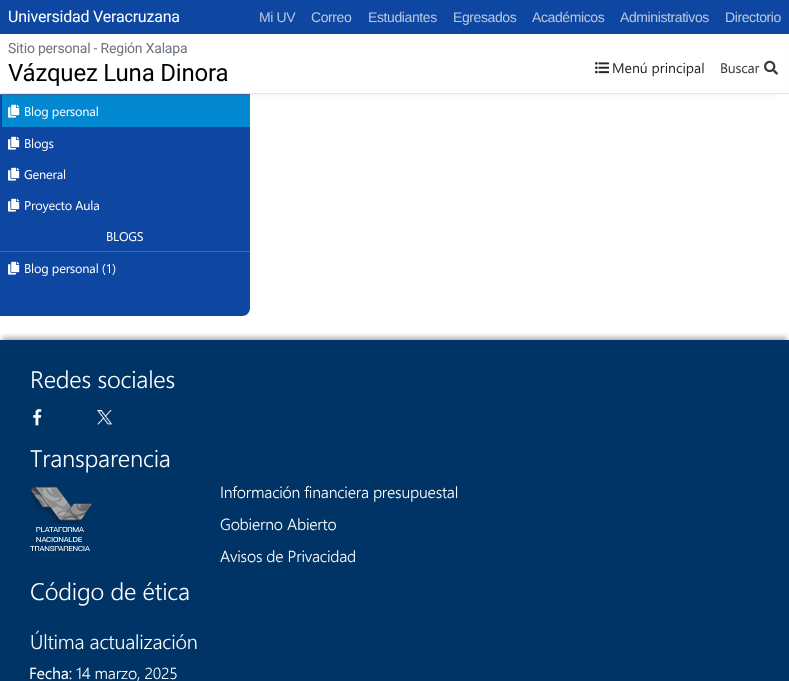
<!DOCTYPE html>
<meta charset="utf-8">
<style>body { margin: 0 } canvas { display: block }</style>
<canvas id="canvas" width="789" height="681"></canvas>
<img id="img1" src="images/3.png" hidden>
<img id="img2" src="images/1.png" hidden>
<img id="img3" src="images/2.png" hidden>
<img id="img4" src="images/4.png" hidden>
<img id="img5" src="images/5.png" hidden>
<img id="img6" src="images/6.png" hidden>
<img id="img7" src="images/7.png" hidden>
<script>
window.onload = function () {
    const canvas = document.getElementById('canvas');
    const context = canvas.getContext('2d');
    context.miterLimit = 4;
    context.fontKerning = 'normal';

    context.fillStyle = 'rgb(255, 255, 255)';
    context.fillRect(0, 0, 789, 681);
    context.fillStyle = 'rgb(14, 71, 161)';
    context.beginPath();
    context.moveTo(0, -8);
    context.lineTo(250, -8);
    context.lineTo(250, 308);
    context.bezierCurveTo(250, 312.5, 246.5, 316, 242, 316);
    context.lineTo(0, 316);
    context.closePath();
    context.fill();
    context.fillStyle = 'rgb(62, 108, 180)';
    context.fillRect(0, 94, 250, 1);
    context.fillStyle = 'rgb(2, 136, 209)';
    context.fillRect(2, 95, 248, 32);
    context.drawImage(document.getElementById('img1'), 8, 104, 12, 14);
    context.fillStyle = 'rgba(0, 0, 0, 0.3)';
    context.filter = 'blur(5px)';
    context.beginPath();
    context.rect(10, 15, 769, 74);
    context.fill();
    context.filter = 'none';
    context.fillStyle = 'rgb(229, 229, 229)';
    context.fillRect(0, 93, 789, 1);
    context.fillStyle = 'rgb(14, 71, 161)';
    context.fillRect(2, 0, 787, 34);
    context.fillStyle = 'rgb(255, 255, 255)';
    context.fillRect(0, 34, 788, 59);
    context.drawImage(document.getElementById('img2'), 595, 62, 14, 12);
    context.drawImage(document.getElementById('img3'), 764, 60, 14, 15);
    context.drawImage(document.getElementById('img4'), 8, 136, 12, 14);
    context.drawImage(document.getElementById('img4'), 8, 167, 12, 14);
    context.drawImage(document.getElementById('img4'), 8, 198, 12, 14);
    context.fillStyle = 'rgb(62, 108, 180)';
    context.fillRect(0, 251, 250, 1);
    context.drawImage(document.getElementById('img4'), 8, 261, 12, 14);
    context.fillStyle = 'rgba(0, 0, 0, 0.3)';
    context.filter = 'blur(2.5px)';
    context.beginPath();
    context.rect(2, 337, 785, 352);
    context.fill();
    context.filter = 'none';
    context.fillStyle = 'rgb(0, 52, 102)';
    context.fillRect(0, 340, 789, 341);
    context.drawImage(document.getElementById('img5'), 32, 408, 10, 18);
    context.drawImage(document.getElementById('img6'), 97, 410, 16, 15);
    context.drawImage(document.getElementById('img7'), 30, 486, 63, 65);
    context.letterSpacing = '-0.2px';
    context.font = '16px Roboto';
    context.fillStyle = 'rgb(255, 255, 255)';
    context.fillText('Universidad Veracruzana', 8, 22);
    context.letterSpacing = '-0.4px';
    context.font = '14px Liberation Sans';
    context.fillStyle = 'rgb(183, 200, 227)';
    context.fillText('Mi UV', 259, 22);
    context.fillText('Correo', 311, 22);
    context.fillText('Estudiantes', 368, 22);
    context.fillText('Egresados', 453, 22);
    context.fillText('Académicos', 532, 22);
    context.fillText('Administrativos', 620, 22);
    context.fillText('Directorio', 725, 22);
    context.letterSpacing = '-0.2px';
    context.font = '14px Roboto';
    context.fillStyle = 'rgb(108, 117, 125)';
    context.fillText('Sitio personal - Región Xalapa', 8, 53);
    context.font = '24px Roboto';
    context.fillStyle = 'rgb(0, 0, 0)';
    context.fillText('Vázquez Luna Dinora', 8, 81);
    context.letterSpacing = '0px';
    context.font = '14px Segoe UI';
    context.fillStyle = 'rgb(33, 37, 41)';
    context.fillText('Menú principal', 612, 73);
    context.letterSpacing = '-0.2px';
    context.fillStyle = 'rgb(52, 58, 64)';
    context.fillText('Buscar', 720, 73);
    context.font = '12.75px Segoe UI';
    context.fillStyle = 'rgb(255, 255, 255)';
    context.fillText('Blog personal', 24, 116);
    context.fillText('Blogs', 24, 148);
    context.fillText('General', 24, 179);
    context.fillText('Proyecto Aula', 24, 210);
    context.fillText('BLOGS', 106, 241);
    context.fillText('Blog personal (1)', 24, 273);
    context.font = '300 24px Segoe UI';
    context.fillText('Redes sociales', 30, 388);
    context.fillText('Transparencia', 30, 467);
    context.font = '300 16px Segoe UI';
    context.fillText('Información financiera presupuestal', 220, 498);
    context.fillText('Gobierno Abierto', 220, 530);
    context.fillText('Avisos de Privacidad', 220, 562);
    context.font = '300 24px Segoe UI';
    context.fillText('Código de ética', 30, 600);
    context.font = '300 20px Segoe UI';
    context.fillText('Última actualización', 30, 649);
    context.font = '16px Segoe UI';
    context.fillText('Fecha:', 29, 679);
    context.font = '300 16px Segoe UI';
    context.fillText('14 marzo, 2025', 76, 679);
};
</script>
